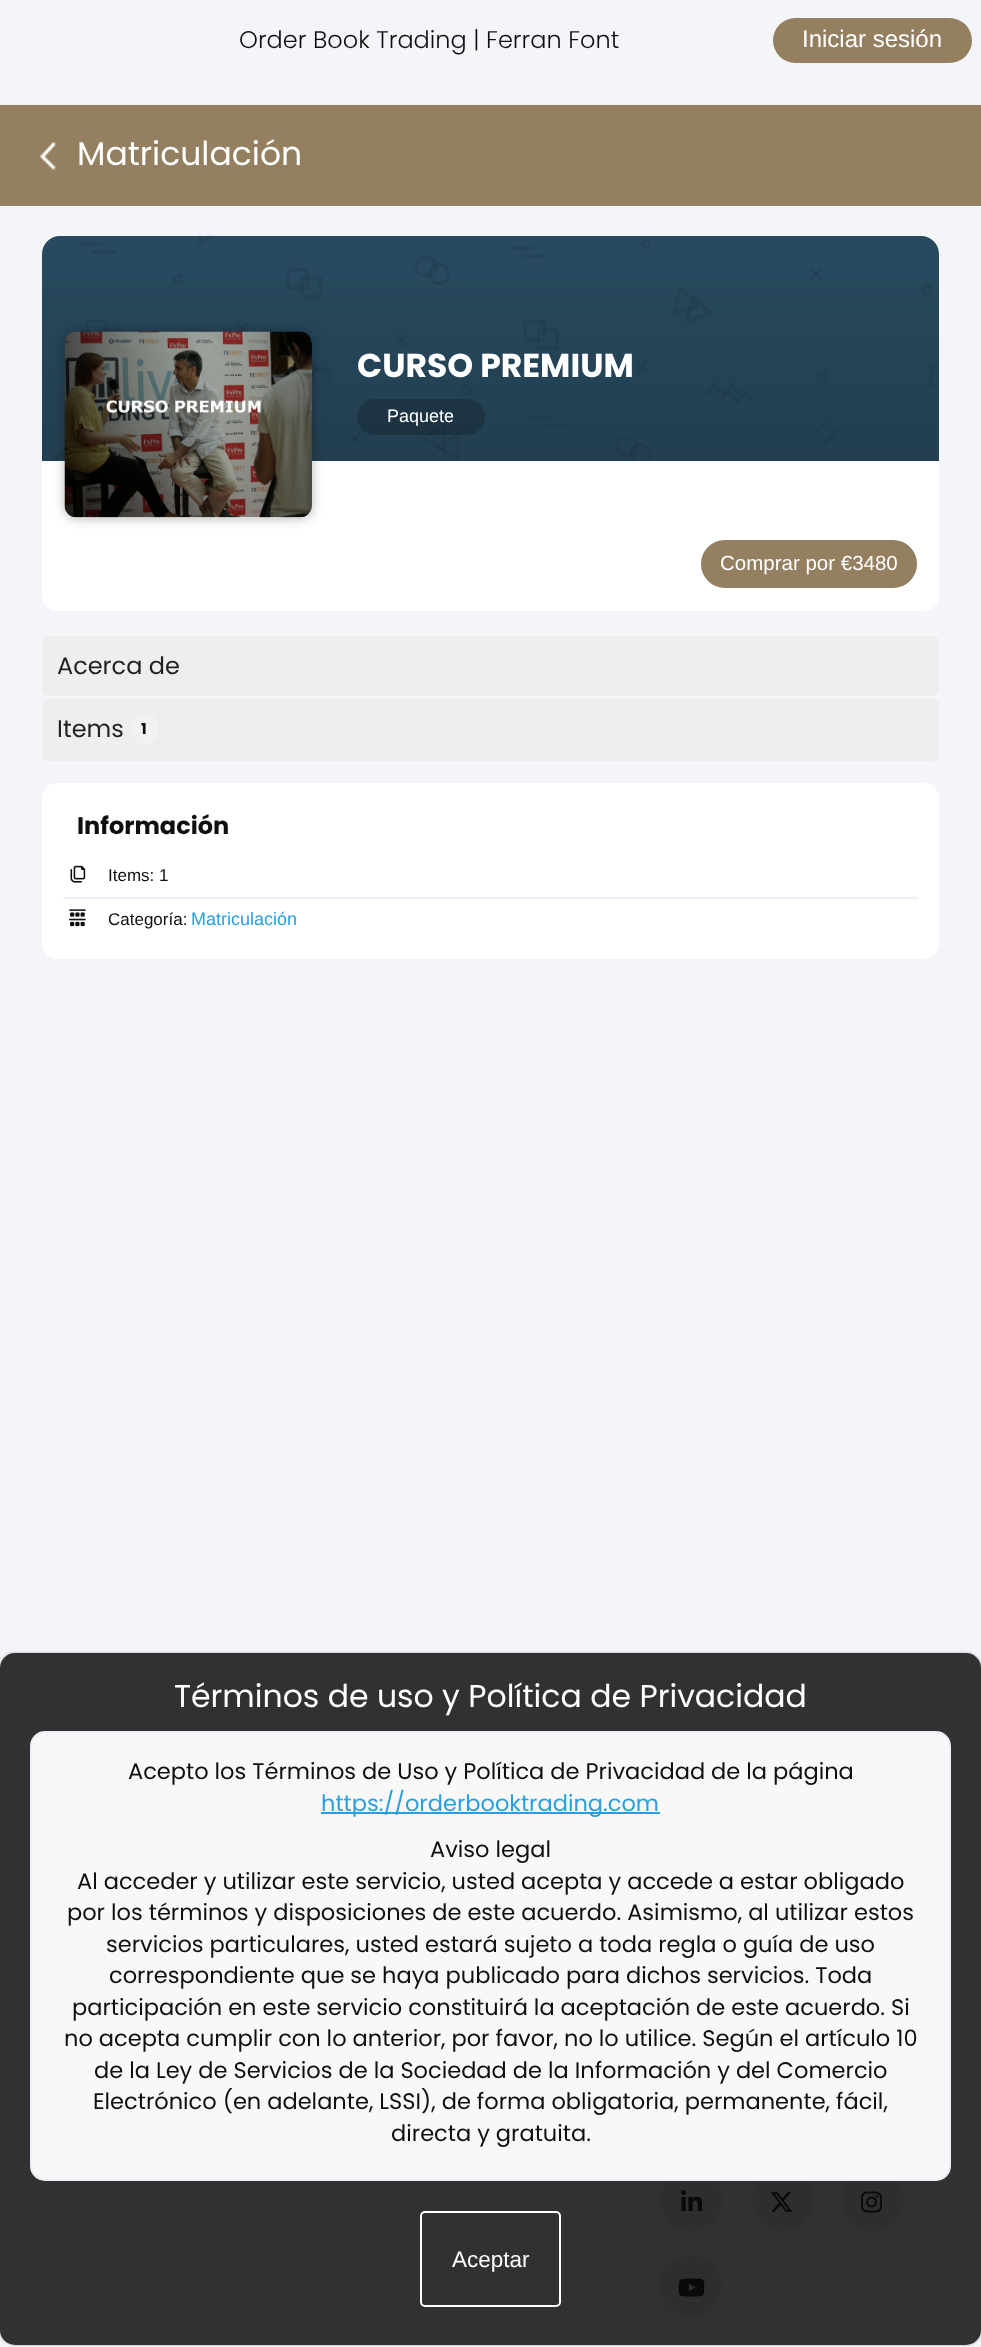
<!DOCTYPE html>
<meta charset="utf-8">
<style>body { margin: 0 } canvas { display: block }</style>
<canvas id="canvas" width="981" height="2347"></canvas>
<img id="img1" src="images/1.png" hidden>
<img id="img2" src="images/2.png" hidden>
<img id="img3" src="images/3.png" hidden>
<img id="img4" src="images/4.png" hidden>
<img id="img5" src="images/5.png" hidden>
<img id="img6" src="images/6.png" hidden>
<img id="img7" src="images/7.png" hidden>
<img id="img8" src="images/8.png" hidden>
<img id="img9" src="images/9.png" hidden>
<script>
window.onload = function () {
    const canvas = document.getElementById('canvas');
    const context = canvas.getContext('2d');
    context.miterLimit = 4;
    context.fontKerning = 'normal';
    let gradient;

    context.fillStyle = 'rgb(243, 245, 249)';
    context.fillRect(0, 0, 981, 2347);
    context.fillStyle = 'rgb(148, 127, 96)';
    context.beginPath();
    context.roundRect(773, 18, 199, 45, 22.5);
    context.fill();
    context.fillRect(0, 105, 981, 101);
    context.drawImage(document.getElementById('img1'), 40, 142, 16, 28);
    context.fillStyle = 'rgb(255, 255, 255)';
    context.beginPath();
    context.roundRect(42, 236, 897, 375, 15);
    context.fill();
    context.fillStyle = 'rgb(40, 73, 94)';
    context.beginPath();
    context.roundRect(42, 236, 897, 225, [18, 18, 0, 0]);
    context.fill();
    context.drawImage(document.getElementById('img2'), 55, 235, 884, 226);
    gradient = context.createLinearGradient(491, 235, 491, 461);
    gradient.addColorStop(0, 'rgba(0, 0, 0, 0)');
    gradient.addColorStop(1, 'rgba(0, 0, 0, 0.14)');
    context.fillStyle = gradient;
    context.fillRect(42, 282, 897, 179);
    context.fillStyle = 'rgba(0, 0, 0, 0.3)';
    context.filter = 'blur(6px)';
    context.beginPath();
    context.roundRect(65, 332, 247, 186, 12);
    context.fill();
    context.filter = 'none';
    context.fillStyle = 'rgb(255, 255, 255)';
    context.beginPath();
    context.roundRect(65, 332, 247, 186, 12);
    context.fill();
    context.drawImage(document.getElementById('img3'), 64, 331, 248, 187);
    context.fillStyle = 'rgba(0, 0, 0, 0.2)';
    context.beginPath();
    context.roundRect(357, 399, 128, 36, 18);
    context.fill();
    context.fillStyle = 'rgb(148, 127, 96)';
    context.beginPath();
    context.roundRect(702, 541, 214, 46, 23);
    context.fill();
    context.strokeStyle = 'rgb(148, 127, 96)';
    context.lineWidth = 2;
    context.stroke();
    context.fillStyle = 'rgb(238, 238, 238)';
    context.beginPath();
    context.roundRect(42, 636, 897, 60, 6);
    context.fill();
    context.beginPath();
    context.roundRect(42, 699, 897, 62, 6);
    context.fill();
    context.fillStyle = 'rgb(242, 242, 244)';
    context.beginPath();
    context.roundRect(132, 713, 26, 31, 13);
    context.fill();
    context.fillStyle = 'rgb(255, 255, 255)';
    context.beginPath();
    context.roundRect(42, 783, 897, 176, 15);
    context.fill();
    context.fillStyle = 'rgb(238, 238, 248)';
    context.fillRect(63, 897, 855, 2);
    context.drawImage(document.getElementById('img4'), 70, 865, 16, 18);
    context.drawImage(document.getElementById('img5'), 69, 909, 17, 18);
    context.fillStyle = 'rgb(229, 229, 241)';
    context.beginPath();
    context.arc(691, 2200, 31, 0, 2 * Math.PI);
    context.fill();
    context.drawImage(document.getElementById('img6'), 681, 2190, 21, 21);
    context.beginPath();
    context.roundRect(752, 2169, 61, 62, 30.5);
    context.fill();
    context.drawImage(document.getElementById('img7'), 770, 2192, 23, 20);
    context.beginPath();
    context.roundRect(842, 2169, 61, 62, 30.5);
    context.fill();
    context.drawImage(document.getElementById('img8'), 861, 2191, 21, 22);
    context.beginPath();
    context.roundRect(660, 2255, 62, 61, 30.5);
    context.fill();
    context.drawImage(document.getElementById('img9'), 678, 2278, 27, 19);
    context.save();
    context.beginPath();
    context.moveTo(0, 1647);
    context.lineTo(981, 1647);
    context.lineTo(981, 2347);
    context.lineTo(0, 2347);
    context.closePath();
    context.moveTo(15, 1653);
    context.lineTo(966, 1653);
    context.bezierCurveTo(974.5, 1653, 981, 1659.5, 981, 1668);
    context.lineTo(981, 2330);
    context.bezierCurveTo(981, 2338.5, 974.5, 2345, 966, 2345);
    context.lineTo(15, 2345);
    context.bezierCurveTo(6.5, 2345, 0, 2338.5, 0, 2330);
    context.lineTo(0, 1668);
    context.bezierCurveTo(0, 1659.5, 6.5, 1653, 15, 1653);
    context.closePath();
    context.clip('evenodd');
    context.fillStyle = 'rgba(0, 0, 0, 0.3)';
    context.filter = 'blur(1.5px)';
    context.beginPath();
    context.roundRect(0, 1653, 981, 692, 15);
    context.fill();
    context.filter = 'none';
    context.restore();
    context.fillStyle = 'rgba(0, 0, 0, 0.8)';
    context.beginPath();
    context.roundRect(0, 1653, 981, 692, 15);
    context.fill();
    context.fillStyle = 'rgba(255, 255, 255, 0.97)';
    context.beginPath();
    context.roundRect(31, 1732, 919, 448, 14);
    context.fill();
    context.strokeStyle = 'rgb(238, 238, 248)';
    context.stroke();
    context.fillStyle = 'rgb(40, 160, 222)';
    context.fillRect(321, 1812, 339, 2);
    context.beginPath();
    context.roundRect(421, 2212, 139, 94, 4);
    context.strokeStyle = 'rgb(255, 255, 255)';
    context.stroke();
    context.font = '300 24px Poppins';
    context.fillStyle = 'rgb(15, 15, 15)';
    context.fillText('Order Book Trading | Ferran Font', 239, 48);
    context.font = '24px Liberation Sans';
    context.fillStyle = 'rgb(255, 255, 255)';
    context.fillText('Iniciar sesión', 802, 47);
    context.font = '33px Poppins';
    context.fillText('Matriculación', 77, 165);
    context.font = 'bold 33px Poppins';
    context.fillText('CURSO PREMIUM', 357, 377);
    context.font = '18px Liberation Sans';
    context.fillText('Paquete', 387, 422);
    context.font = '20.5px Liberation Sans';
    context.fillText('Comprar por €3480', 720, 570);
    context.font = '24px Poppins';
    context.fillStyle = 'rgb(34, 34, 34)';
    context.fillText('Acerca de', 57, 674);
    context.fillText('Items', 57, 737);
    context.font = 'bold 15px Poppins';
    context.fillStyle = 'rgb(15, 15, 15)';
    context.fillText('1', 141, 734);
    context.font = 'bold 24px Poppins';
    context.fillText('Información', 77, 834);
    context.font = '17px Liberation Sans';
    context.fillText('Items: 1', 108, 881);
    context.fillText('Categoría:', 108, 925);
    context.font = '18px Liberation Sans';
    context.fillStyle = 'rgb(40, 160, 222)';
    context.fillText('Matriculación', 191, 925);
    context.font = '31.5px Poppins';
    context.fillStyle = 'rgb(255, 255, 255)';
    context.fillText('Términos de uso y Política de Privacidad', 174, 1707);
    context.font = '22.5px Poppins';
    context.fillStyle = 'rgb(15, 15, 15)';
    context.fillText('Acepto los Términos de Uso y Política de Privacidad de la página', 128, 1779);
    context.fillStyle = 'rgb(40, 160, 222)';
    context.fillText('https://orderbooktrading.com', 321, 1811);
    context.fillStyle = 'rgb(15, 15, 15)';
    context.fillText('Aviso legal', 430, 1857);
    context.fillText('Al acceder y utilizar este servicio, usted acepta y accede a estar obligado', 77, 1889);
    context.fillText('por los términos y disposiciones de este acuerdo. Asimismo, al utilizar estos', 67, 1920);
    context.fillText('servicios particulares, usted estará sujeto a toda regla o guía de uso', 106, 1952);
    context.fillText('correspondiente que se haya publicado para dichos servicios. Toda', 109, 1983);
    context.fillText('participación en este servicio constituirá la aceptación de este acuerdo. Si', 72, 2015);
    context.fillText('no acepta cumplir con lo anterior, por favor, no lo utilice. Según el artículo 10', 64, 2046);
    context.fillText('de la Ley de Servicios de la Sociedad de la Información y del Comercio', 94, 2078);
    context.fillText('Electrónico (en adelante, LSSI), de forma obligatoria, permanente, fácil,', 93, 2109);
    context.fillText('directa y gratuita.', 391, 2141);
    context.font = '22.5px Liberation Sans';
    context.fillStyle = 'rgb(255, 255, 255)';
    context.fillText('Aceptar', 452, 2267);
};
</script>
